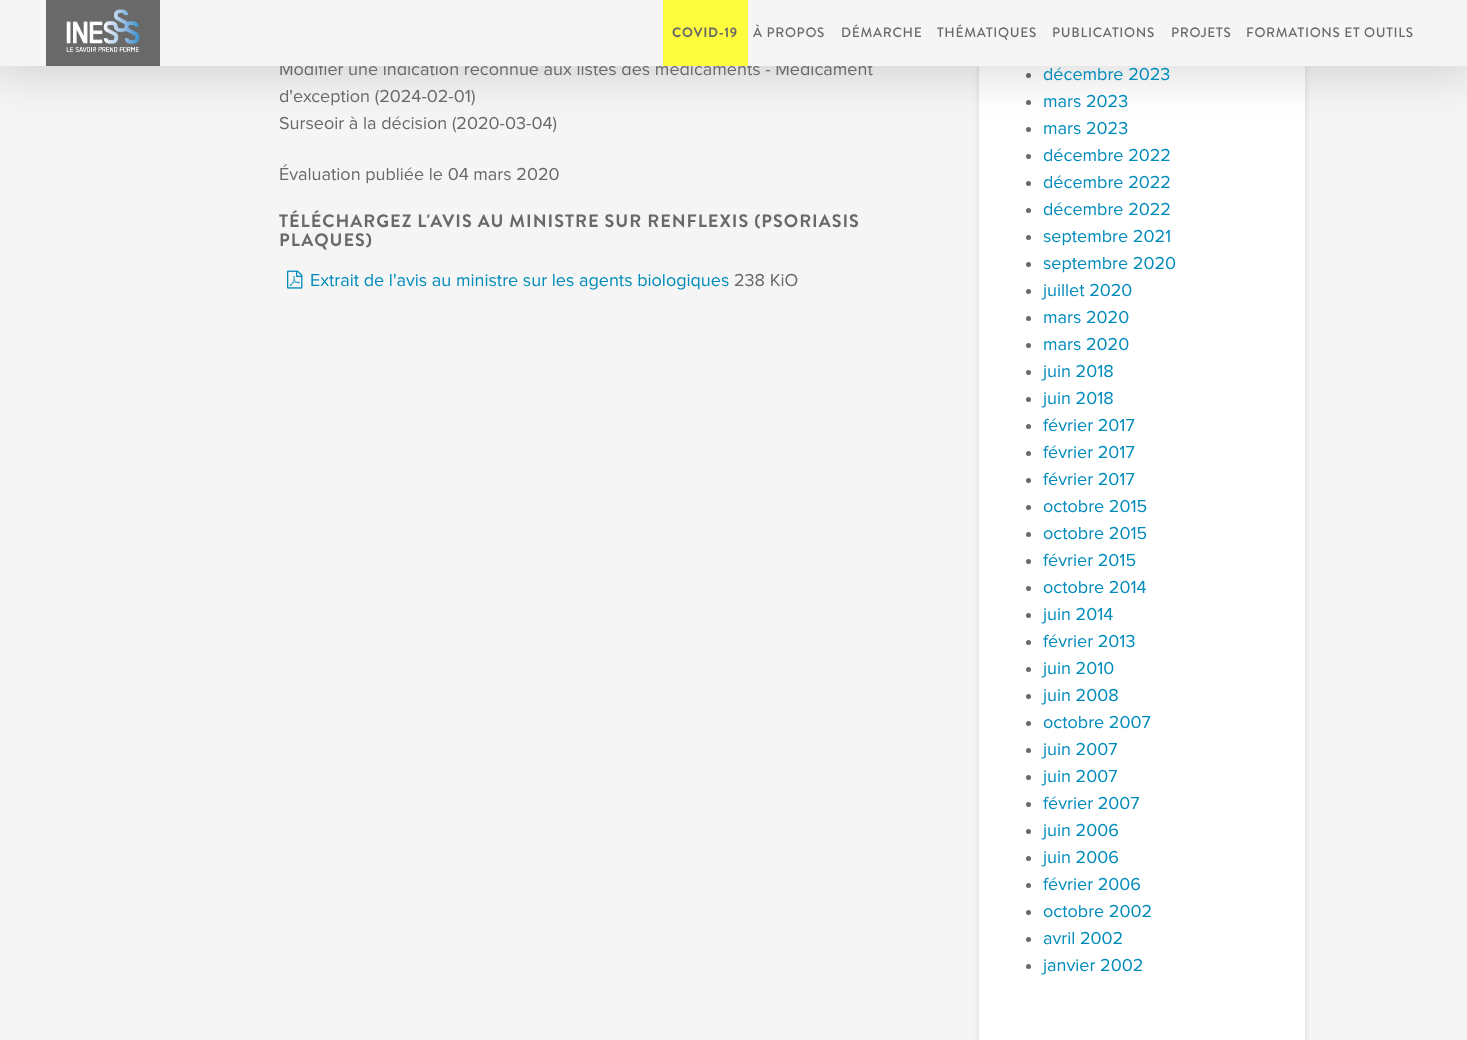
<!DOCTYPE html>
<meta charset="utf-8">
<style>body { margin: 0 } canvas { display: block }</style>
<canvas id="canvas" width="1467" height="1040"></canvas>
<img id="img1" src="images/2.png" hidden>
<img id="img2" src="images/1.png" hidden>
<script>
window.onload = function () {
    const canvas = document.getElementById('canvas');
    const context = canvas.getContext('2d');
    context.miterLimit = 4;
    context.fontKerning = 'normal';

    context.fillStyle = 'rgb(245, 245, 245)';
    context.fillRect(0, 0, 1467, 1040);
    context.fillStyle = 'rgba(100, 100, 100, 0.2)';
    context.filter = 'blur(3px)';
    context.beginPath();
    context.roundRect(979, -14, 326, 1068, 5);
    context.fill();
    context.filter = 'none';
    context.fillStyle = 'rgb(255, 255, 255)';
    context.fillRect(979, 66, 326, 974);
    context.fillStyle = 'rgb(105, 105, 105)';
    context.beginPath();
    context.arc(1028.5, 75.5, 2.5, 0, 2 * Math.PI);
    context.fill();
    context.beginPath();
    context.arc(1028.5, 102.5, 2.5, 0, 2 * Math.PI);
    context.fill();
    context.beginPath();
    context.arc(1028.5, 129.5, 2.5, 0, 2 * Math.PI);
    context.fill();
    context.fillStyle = 'rgba(0, 0, 0, 0.3)';
    context.filter = 'blur(25px)';
    context.beginPath();
    context.rect(-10, 42, 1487, 21);
    context.fill();
    context.filter = 'none';
    context.drawImage(document.getElementById('img1'), 287, 270, 16, 19);
    context.fillStyle = 'rgb(105, 105, 105)';
    context.beginPath();
    context.arc(1028.5, 156.5, 2.5, 0, 2 * Math.PI);
    context.fill();
    context.beginPath();
    context.arc(1028.5, 183.5, 2.5, 0, 2 * Math.PI);
    context.fill();
    context.beginPath();
    context.arc(1028.5, 210.5, 2.5, 0, 2 * Math.PI);
    context.fill();
    context.beginPath();
    context.arc(1028.5, 237.5, 2.5, 0, 2 * Math.PI);
    context.fill();
    context.beginPath();
    context.arc(1028.5, 264.5, 2.5, 0, 2 * Math.PI);
    context.fill();
    context.beginPath();
    context.arc(1028.5, 291.5, 2.5, 0, 2 * Math.PI);
    context.fill();
    context.beginPath();
    context.arc(1028.5, 318.5, 2.5, 0, 2 * Math.PI);
    context.fill();
    context.beginPath();
    context.arc(1028.5, 345.5, 2.5, 0, 2 * Math.PI);
    context.fill();
    context.beginPath();
    context.arc(1028.5, 372.5, 2.5, 0, 2 * Math.PI);
    context.fill();
    context.beginPath();
    context.arc(1028.5, 399.5, 2.5, 0, 2 * Math.PI);
    context.fill();
    context.beginPath();
    context.arc(1028.5, 426.5, 2.5, 0, 2 * Math.PI);
    context.fill();
    context.beginPath();
    context.arc(1028.5, 453.5, 2.5, 0, 2 * Math.PI);
    context.fill();
    context.beginPath();
    context.arc(1028.5, 480.5, 2.5, 0, 2 * Math.PI);
    context.fill();
    context.beginPath();
    context.arc(1028.5, 507.5, 2.5, 0, 2 * Math.PI);
    context.fill();
    context.beginPath();
    context.arc(1028.5, 534.5, 2.5, 0, 2 * Math.PI);
    context.fill();
    context.beginPath();
    context.arc(1028.5, 561.5, 2.5, 0, 2 * Math.PI);
    context.fill();
    context.beginPath();
    context.arc(1028.5, 588.5, 2.5, 0, 2 * Math.PI);
    context.fill();
    context.beginPath();
    context.arc(1028.5, 615.5, 2.5, 0, 2 * Math.PI);
    context.fill();
    context.beginPath();
    context.arc(1028.5, 642.5, 2.5, 0, 2 * Math.PI);
    context.fill();
    context.beginPath();
    context.arc(1028.5, 669.5, 2.5, 0, 2 * Math.PI);
    context.fill();
    context.beginPath();
    context.arc(1028.5, 696.5, 2.5, 0, 2 * Math.PI);
    context.fill();
    context.beginPath();
    context.arc(1028.5, 723.5, 2.5, 0, 2 * Math.PI);
    context.fill();
    context.beginPath();
    context.arc(1028.5, 750.5, 2.5, 0, 2 * Math.PI);
    context.fill();
    context.beginPath();
    context.arc(1028.5, 777.5, 2.5, 0, 2 * Math.PI);
    context.fill();
    context.beginPath();
    context.arc(1028.5, 804.5, 2.5, 0, 2 * Math.PI);
    context.fill();
    context.beginPath();
    context.arc(1028.5, 831.5, 2.5, 0, 2 * Math.PI);
    context.fill();
    context.beginPath();
    context.arc(1028.5, 858.5, 2.5, 0, 2 * Math.PI);
    context.fill();
    context.beginPath();
    context.arc(1028.5, 885.5, 2.5, 0, 2 * Math.PI);
    context.fill();
    context.beginPath();
    context.arc(1028.5, 912.5, 2.5, 0, 2 * Math.PI);
    context.fill();
    context.beginPath();
    context.arc(1028.5, 939.5, 2.5, 0, 2 * Math.PI);
    context.fill();
    context.beginPath();
    context.arc(1028.5, 966.5, 2.5, 0, 2 * Math.PI);
    context.fill();
    context.font = '18px Proxima Nova';
    context.fillText('Modifier une indication reconnue aux listes des médicaments - Médicament', 279, 75);
    context.fillStyle = 'rgb(245, 245, 245)';
    context.fillRect(0, 0, 1467, 66);
    context.fillStyle = 'rgb(105, 105, 105)';
    context.fillRect(46, 0, 114, 66);
    context.drawImage(document.getElementById('img2'), 66, 9, 74, 44);
    context.letterSpacing = '0.7px';
    context.font = '500 13.6px Brandon Grotesque';
    context.fillText('FORMATIONS ET OUTILS', 1246, 37);
    context.fillText('PROJETS', 1171, 37);
    context.fillText('PUBLICATIONS', 1052, 37);
    context.fillText('THÉMATIQUES', 937, 37);
    context.fillText('DÉMARCHE', 841, 37);
    context.fillText('À PROPOS', 753, 37);
    context.fillStyle = 'rgb(253, 253, 61)';
    context.fillRect(663, 0, 85, 66);
    context.font = 'bold 13.6px Brandon Grotesque';
    context.fillStyle = 'rgb(105, 105, 105)';
    context.fillText('COVID-19', 672, 37);
    context.letterSpacing = '0px';
    context.font = '18px Proxima Nova';
    context.fillText('d\'exception (2024-02-01)', 279, 102);
    context.fillText('Surseoir à la décision (2020-03-04)', 279, 129);
    context.fillText('Évaluation publiée le 04 mars 2020', 279, 180);
    context.letterSpacing = '1px';
    context.font = 'bold 18px Brandon Grotesque';
    context.fillText('TÉLÉCHARGEZ L\'AVIS AU MINISTRE SUR RENFLEXIS (PSORIASIS', 279, 227);
    context.fillText('PLAQUES)', 279, 246);
    context.letterSpacing = '0px';
    context.font = '18px Proxima Nova';
    context.fillStyle = 'rgb(0, 139, 187)';
    context.fillText('Extrait de l\'avis au ministre sur les agents biologiques', 310, 286);
    context.fillStyle = 'rgb(105, 105, 105)';
    context.fillText('238 KiO', 734, 286);
    context.fillStyle = 'rgb(0, 139, 187)';
    context.fillText('décembre 2023', 1043, 80);
    context.fillText('mars 2023', 1043, 107);
    context.fillText('mars 2023', 1043, 134);
    context.fillText('décembre 2022', 1043, 161);
    context.fillText('décembre 2022', 1043, 188);
    context.fillText('décembre 2022', 1043, 215);
    context.fillText('septembre 2021', 1043, 242);
    context.fillText('septembre 2020', 1043, 269);
    context.fillText('juillet 2020', 1043, 296);
    context.fillText('mars 2020', 1043, 323);
    context.fillText('mars 2020', 1043, 350);
    context.fillText('juin 2018', 1043, 377);
    context.fillText('juin 2018', 1043, 404);
    context.fillText('février 2017', 1043, 431);
    context.fillText('février 2017', 1043, 458);
    context.fillText('février 2017', 1043, 485);
    context.fillText('octobre 2015', 1043, 512);
    context.fillText('octobre 2015', 1043, 539);
    context.fillText('février 2015', 1043, 566);
    context.fillText('octobre 2014', 1043, 593);
    context.fillText('juin 2014', 1043, 620);
    context.fillText('février 2013', 1043, 647);
    context.fillText('juin 2010', 1043, 674);
    context.fillText('juin 2008', 1043, 701);
    context.fillText('octobre 2007', 1043, 728);
    context.fillText('juin 2007', 1043, 755);
    context.fillText('juin 2007', 1043, 782);
    context.fillText('février 2007', 1043, 809);
    context.fillText('juin 2006', 1043, 836);
    context.fillText('juin 2006', 1043, 863);
    context.fillText('février 2006', 1043, 890);
    context.fillText('octobre 2002', 1043, 917);
    context.fillText('avril 2002', 1043, 944);
    context.fillText('janvier 2002', 1043, 971);
};
</script>
